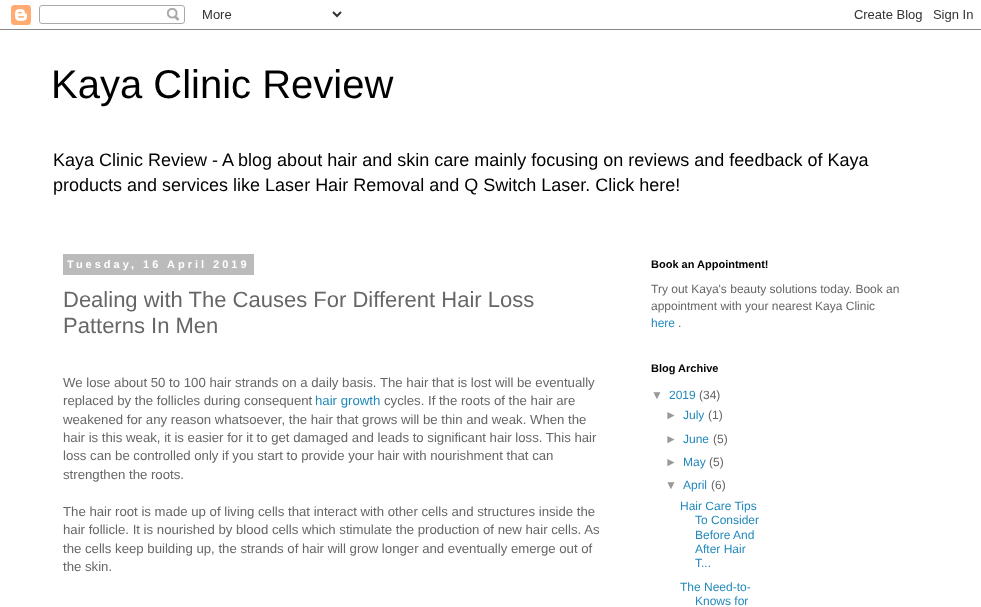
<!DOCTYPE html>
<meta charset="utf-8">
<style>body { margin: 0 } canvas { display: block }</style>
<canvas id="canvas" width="981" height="607"></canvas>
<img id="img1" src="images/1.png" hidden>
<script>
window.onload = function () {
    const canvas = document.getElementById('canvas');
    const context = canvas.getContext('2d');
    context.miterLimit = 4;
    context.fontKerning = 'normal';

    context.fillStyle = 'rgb(255, 255, 255)';
    context.fillRect(0, 0, 981, 607);
    context.drawImage(document.getElementById('img1'), 0, 5, 981, 25);
    context.fillStyle = 'rgb(187, 187, 187)';
    context.fillRect(63, 254, 191, 21);
    context.font = '40px Liberation Sans';
    context.fillStyle = 'rgb(0, 0, 0)';
    context.fillText('Kaya Clinic Review', 51, 98);
    context.font = '18px Liberation Sans';
    context.fillText('Kaya Clinic Review - A blog about hair and skin care mainly focusing on reviews and feedback of Kaya', 53, 166);
    context.fillText('products and services like Laser Hair Removal and Q Switch Laser. Click here!', 53, 191);
    context.letterSpacing = '3px';
    context.font = 'bold 11px Liberation Sans';
    context.fillStyle = 'rgb(255, 255, 255)';
    context.fillText('Tuesday, 16 April 2019', 67, 268);
    context.letterSpacing = '0px';
    context.font = '22px Liberation Sans';
    context.fillStyle = 'rgb(102, 102, 102)';
    context.fillText('Dealing with The Causes For Different Hair Loss', 63, 307);
    context.fillText('Patterns In Men', 63, 333);
    context.font = '13.2px Liberation Sans';
    context.fillText('We lose about 50 to 100 hair strands on a daily basis. The hair that is lost will be eventually', 63, 387);
    context.fillText('replaced by the follicles during consequent', 63, 405);
    context.fillStyle = 'rgb(34, 136, 187)';
    context.fillText('hair growth', 315, 405);
    context.fillStyle = 'rgb(102, 102, 102)';
    context.fillText('cycles. If the roots of the hair are', 384, 405);
    context.fillText('weakened for any reason whatsoever, the hair that grows will be thin and weak. When the', 63, 424);
    context.fillText('hair is this weak, it is easier for it to get damaged and leads to significant hair loss. This hair', 63, 442);
    context.fillText('loss can be controlled only if you start to provide your hair with nourishment that can', 63, 460);
    context.fillText('strengthen the roots.', 63, 479);
    context.fillText('The hair root is made up of living cells that interact with other cells and structures inside the', 63, 516);
    context.fillText('hair follicle. It is nourished by blood cells which stimulate the production of new hair cells. As', 63, 534);
    context.fillText('the cells keep building up, the strands of hair will grow longer and eventually emerge out of', 63, 553);
    context.fillText('the skin.', 63, 571);
    context.font = 'bold 11px Liberation Sans';
    context.fillStyle = 'rgb(0, 0, 0)';
    context.fillText('Book an Appointment!', 651, 268);
    context.font = '12px Liberation Sans';
    context.fillStyle = 'rgb(102, 102, 102)';
    context.fillText('Try out Kaya\'s beauty solutions today. Book an', 651, 293);
    context.fillText('appointment with your nearest Kaya Clinic', 651, 310);
    context.fillStyle = 'rgb(34, 136, 187)';
    context.fillText('here', 651, 327);
    context.fillStyle = 'rgb(102, 102, 102)';
    context.fillText('.', 678, 327);
    context.font = 'bold 11px Liberation Sans';
    context.fillStyle = 'rgb(0, 0, 0)';
    context.fillText('Blog Archive', 651, 372);
    context.font = '12px Liberation Sans';
    context.fillStyle = 'rgb(153, 153, 153)';
    context.fillText('▼', 651, 399);
    context.fillStyle = 'rgb(34, 136, 187)';
    context.fillText('2019', 669, 399);
    context.fillStyle = 'rgb(102, 102, 102)';
    context.fillText('(34)', 699, 399);
    context.fillStyle = 'rgb(153, 153, 153)';
    context.fillText('►', 665, 419);
    context.fillStyle = 'rgb(34, 136, 187)';
    context.fillText('July', 683, 419);
    context.fillStyle = 'rgb(102, 102, 102)';
    context.fillText('(1)', 708, 419);
    context.fillStyle = 'rgb(153, 153, 153)';
    context.fillText('►', 665, 443);
    context.fillStyle = 'rgb(34, 136, 187)';
    context.fillText('June', 683, 443);
    context.fillStyle = 'rgb(102, 102, 102)';
    context.fillText('(5)', 713, 443);
    context.fillStyle = 'rgb(153, 153, 153)';
    context.fillText('►', 665, 466);
    context.fillStyle = 'rgb(34, 136, 187)';
    context.fillText('May', 683, 466);
    context.fillStyle = 'rgb(102, 102, 102)';
    context.fillText('(5)', 709, 466);
    context.fillStyle = 'rgb(153, 153, 153)';
    context.fillText('▼', 665, 489);
    context.fillStyle = 'rgb(34, 136, 187)';
    context.fillText('April', 683, 489);
    context.fillStyle = 'rgb(102, 102, 102)';
    context.fillText('(6)', 711, 489);
    context.fillStyle = 'rgb(34, 136, 187)';
    context.fillText('Hair Care Tips', 680, 510);
    context.fillText('To Consider', 695, 524);
    context.fillText('Before And', 695, 539);
    context.fillText('After Hair', 695, 553);
    context.fillText('T...', 695, 567);
    context.fillText('The Need-to-', 680, 591);
    context.fillText('Knows for', 695, 605);
};
</script>
